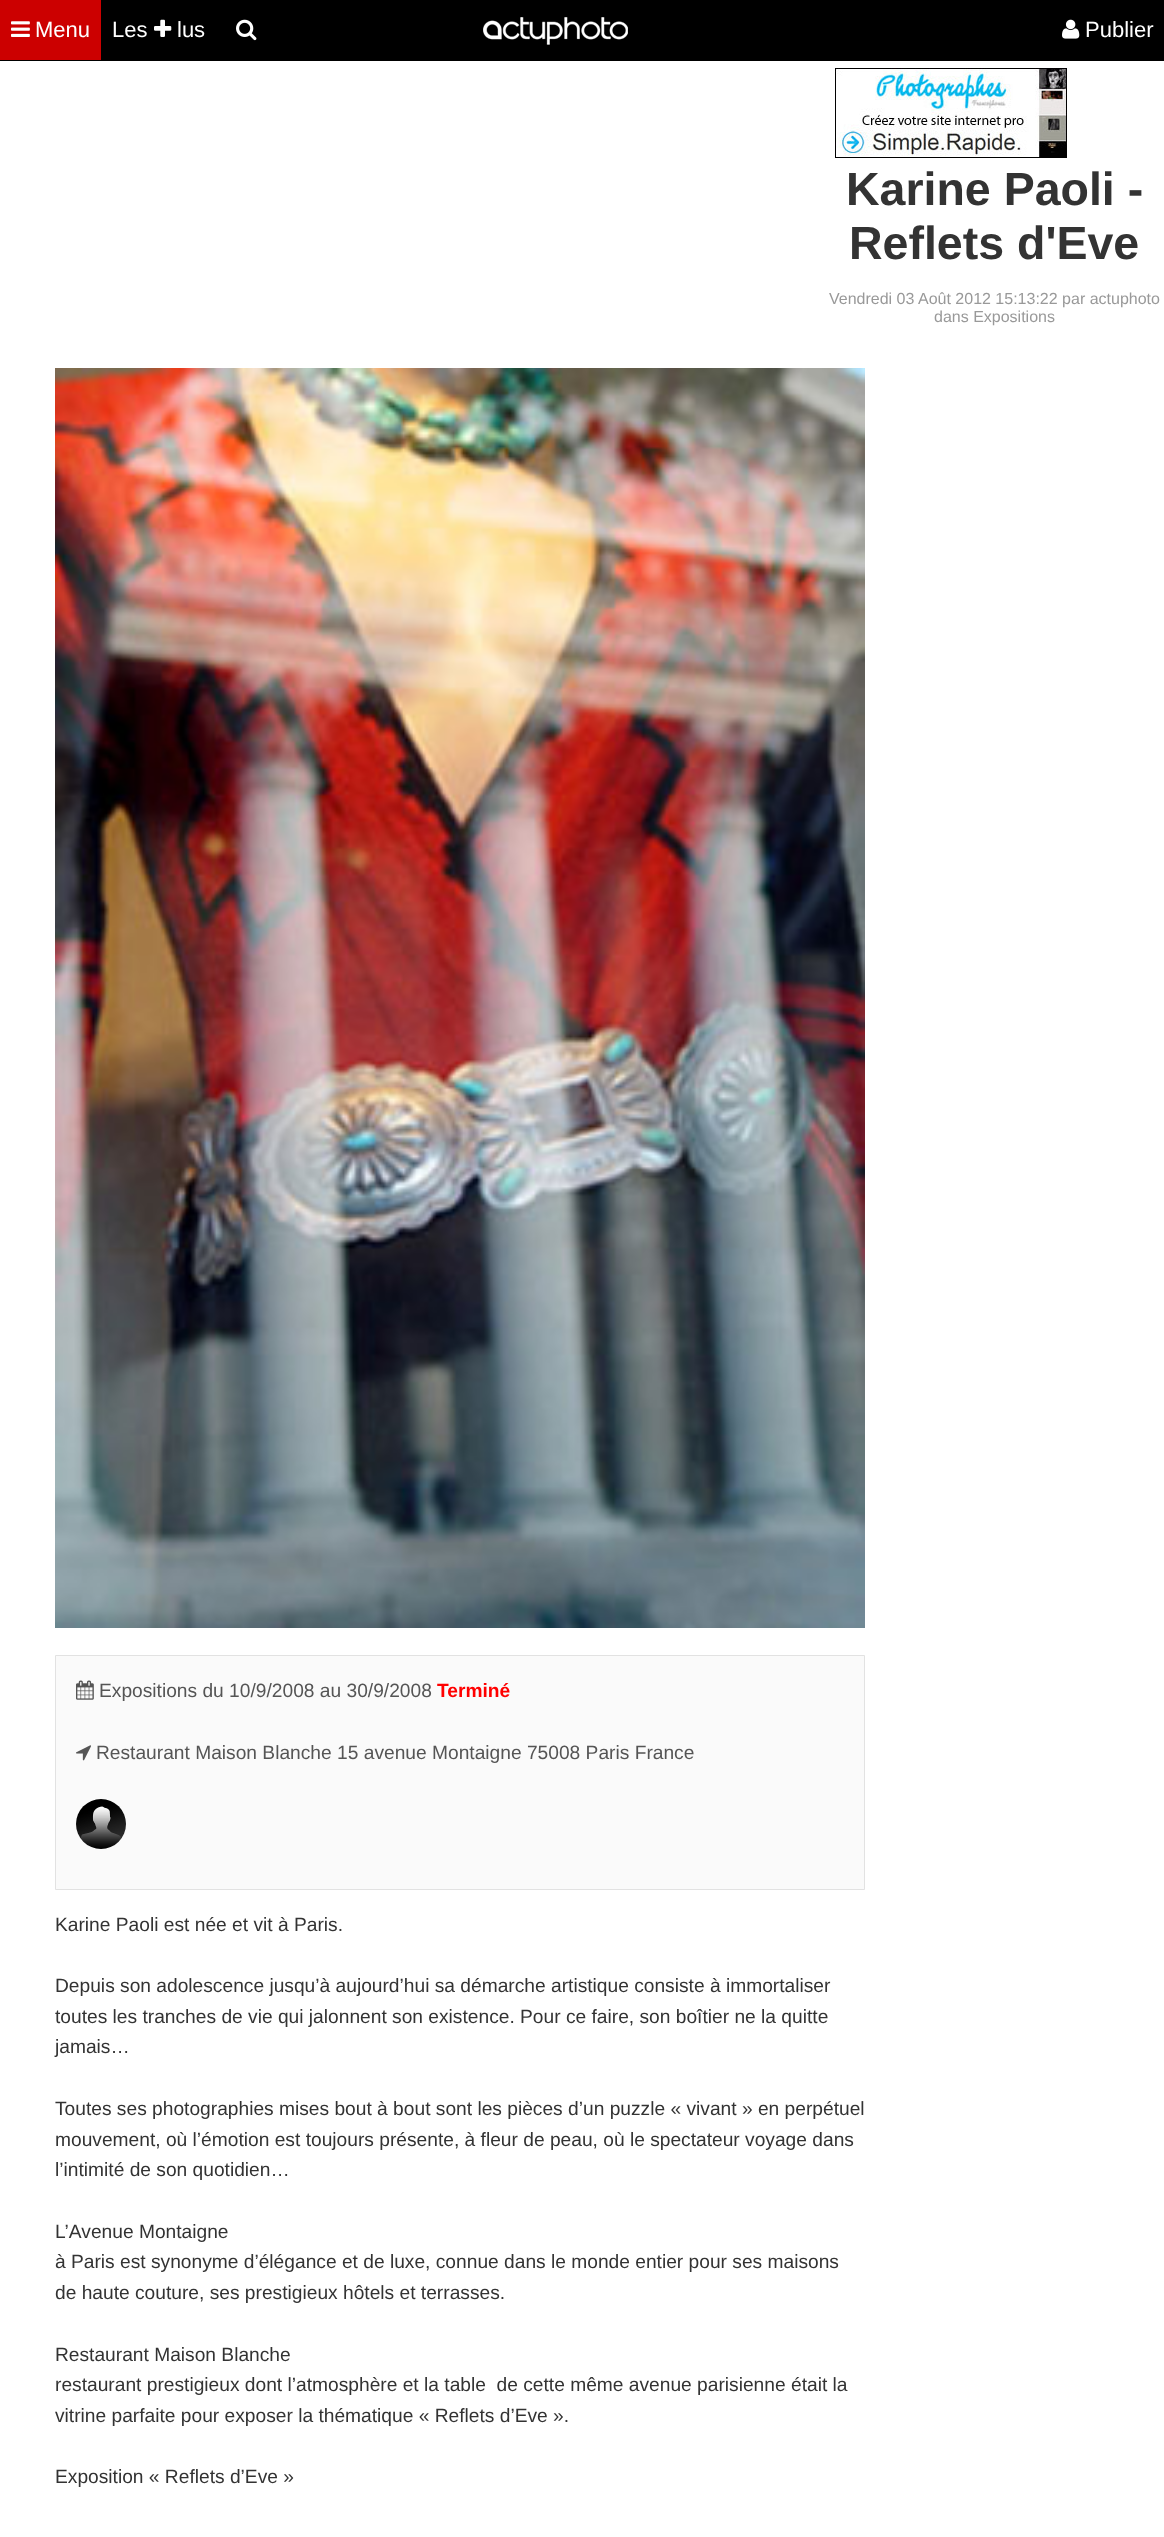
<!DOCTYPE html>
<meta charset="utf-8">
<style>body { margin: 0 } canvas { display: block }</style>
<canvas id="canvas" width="1164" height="2537"></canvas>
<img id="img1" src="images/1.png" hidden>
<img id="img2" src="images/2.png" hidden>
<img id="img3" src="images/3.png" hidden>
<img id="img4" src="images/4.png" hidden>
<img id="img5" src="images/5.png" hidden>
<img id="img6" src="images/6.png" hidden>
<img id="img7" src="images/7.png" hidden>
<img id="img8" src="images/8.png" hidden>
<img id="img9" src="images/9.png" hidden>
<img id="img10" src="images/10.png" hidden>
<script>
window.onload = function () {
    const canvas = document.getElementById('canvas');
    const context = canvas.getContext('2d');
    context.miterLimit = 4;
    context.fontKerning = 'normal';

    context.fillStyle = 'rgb(255, 255, 255)';
    context.fillRect(0, 0, 1164, 2537);
    context.fillStyle = 'rgb(0, 0, 0)';
    context.fillRect(0, 0, 1164, 61);
    context.drawImage(document.getElementById('img1'), 483, 17, 145, 28);
    context.fillStyle = 'rgb(204, 0, 0)';
    context.fillRect(0, 0, 101, 60);
    context.drawImage(document.getElementById('img2'), 11, 21, 19, 16);
    context.drawImage(document.getElementById('img3'), 154, 19, 18, 18);
    context.drawImage(document.getElementById('img4'), 236, 19, 21, 22);
    context.drawImage(document.getElementById('img5'), 1062, 19, 18, 20);
    context.drawImage(document.getElementById('img6'), 835, 68, 232, 90);
    context.drawImage(document.getElementById('img7'), 55, 368, 810, 1260);
    context.fillStyle = 'rgb(250, 250, 250)';
    context.beginPath();
    context.rect(55.5, 1655.5, 809, 234);
    context.fill();
    context.strokeStyle = 'rgb(226, 226, 226)';
    context.stroke();
    context.drawImage(document.getElementById('img8'), 76, 1680, 18, 20);
    context.drawImage(document.getElementById('img9'), 76, 1745, 15, 16);
    context.drawImage(document.getElementById('img10'), 76, 1799, 50, 50);
    context.font = '22px Liberation Sans';
    context.fillStyle = 'rgb(255, 255, 255)';
    context.fillText('Menu', 35, 37);
    context.fillText('Les', 112, 37);
    context.fillText('lus', 177, 37);
    context.fillText('Publier', 1085, 37);
    context.font = 'bold 46.5px Liberation Sans';
    context.fillStyle = 'rgb(51, 51, 51)';
    context.fillText('Karine Paoli -', 846, 205);
    context.fillText('Reflets d\'Eve', 849, 259);
    context.font = '16px Liberation Sans';
    context.fillStyle = 'rgb(153, 153, 153)';
    context.fillText('Vendredi 03 Août 2012 15:13:22 par actuphoto', 829, 304);
    context.fillText('dans Expositions', 934, 322);
    context.font = '19.2px Liberation Sans';
    context.fillStyle = 'rgb(85, 85, 85)';
    context.fillText('Expositions du 10/9/2008 au 30/9/2008', 99, 1697);
    context.font = 'bold 19.2px Liberation Sans';
    context.fillStyle = 'rgb(255, 0, 0)';
    context.fillText('Terminé', 437, 1697);
    context.font = '19.2px Liberation Sans';
    context.fillStyle = 'rgb(85, 85, 85)';
    context.fillText('Restaurant Maison Blanche 15 avenue Montaigne 75008 Paris France', 96, 1759);
    context.fillStyle = 'rgb(51, 51, 51)';
    context.fillText('Karine Paoli est née et vit à Paris.', 55, 1931);
    context.fillText('Depuis son adolescence jusqu’à aujourd’hui sa démarche artistique consiste à immortaliser', 55, 1992);
    context.fillText('toutes les tranches de vie qui jalonnent son existence. Pour ce faire, son boîtier ne la quitte', 55, 2023);
    context.fillText('jamais…', 55, 2053);
    context.fillText('Toutes ses photographies mises bout à bout sont les pièces d’un puzzle « vivant » en perpétuel', 55, 2115);
    context.fillText('mouvement, où l’émotion est toujours présente, à fleur de peau, où le spectateur voyage dans', 55, 2146);
    context.fillText('l’intimité de son quotidien…', 55, 2176);
    context.fillText('L’Avenue Montaigne', 55, 2238);
    context.fillText('à Paris est synonyme d’élégance et de luxe, connue dans le monde entier pour ses maisons', 55, 2268);
    context.fillText('de haute couture, ses prestigieux hôtels et terrasses.', 55, 2299);
    context.fillText('Restaurant Maison Blanche', 55, 2361);
    context.fillText('restaurant prestigieux dont l’atmosphère et la table  de cette même avenue parisienne était la', 55, 2391);
    context.fillText('vitrine parfaite pour exposer la thématique « Reflets d’Eve ».', 55, 2422);
    context.fillText('Exposition « Reflets d’Eve »', 55, 2483);
};
</script>
